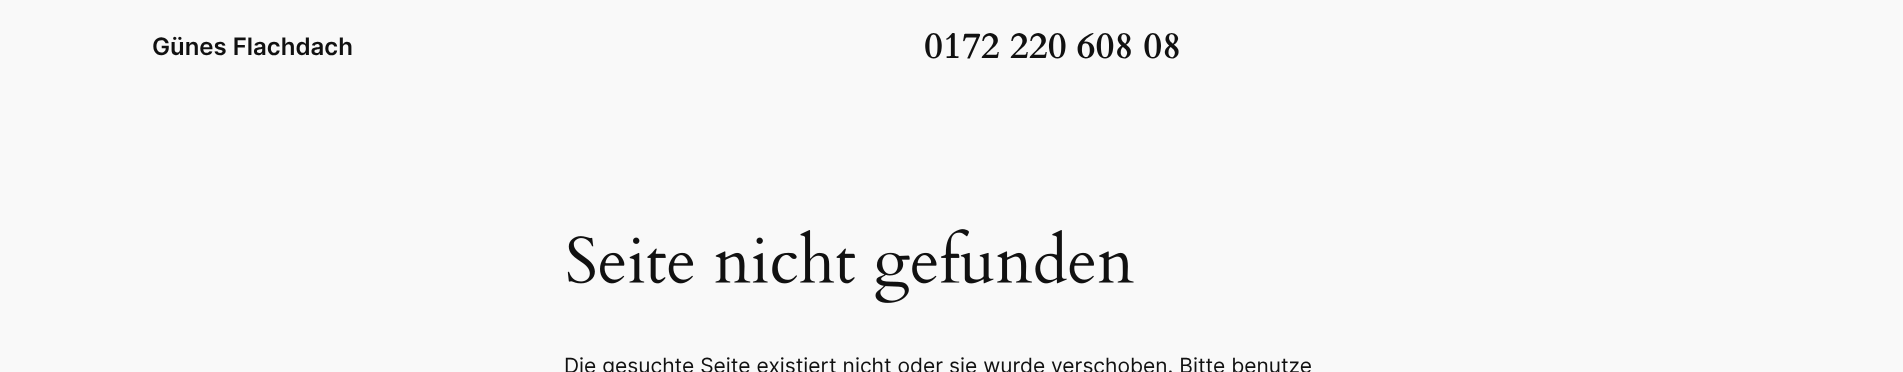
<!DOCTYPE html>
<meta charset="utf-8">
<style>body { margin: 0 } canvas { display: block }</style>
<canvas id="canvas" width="1903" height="372"></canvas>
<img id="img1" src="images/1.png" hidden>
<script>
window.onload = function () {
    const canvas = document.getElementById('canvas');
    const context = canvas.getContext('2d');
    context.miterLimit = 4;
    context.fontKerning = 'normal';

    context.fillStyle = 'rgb(249, 249, 249)';
    context.fillRect(0, 0, 1903, 372);
    context.drawImage(document.getElementById('img1'), 567, 229, 567, 74);
    context.font = '600 24px Inter';
    context.fillStyle = 'rgb(17, 17, 17)';
    context.fillText('Günes Flachdach', 152, 55);
    context.font = 'bold 37px Cardo';
    context.fillText('0172 220 608 08', 924, 58);
    context.font = '21px Inter';
    context.fillText('Die gesuchte Seite existiert nicht oder sie wurde verschoben. Bitte benutze', 564, 373);
};
</script>
